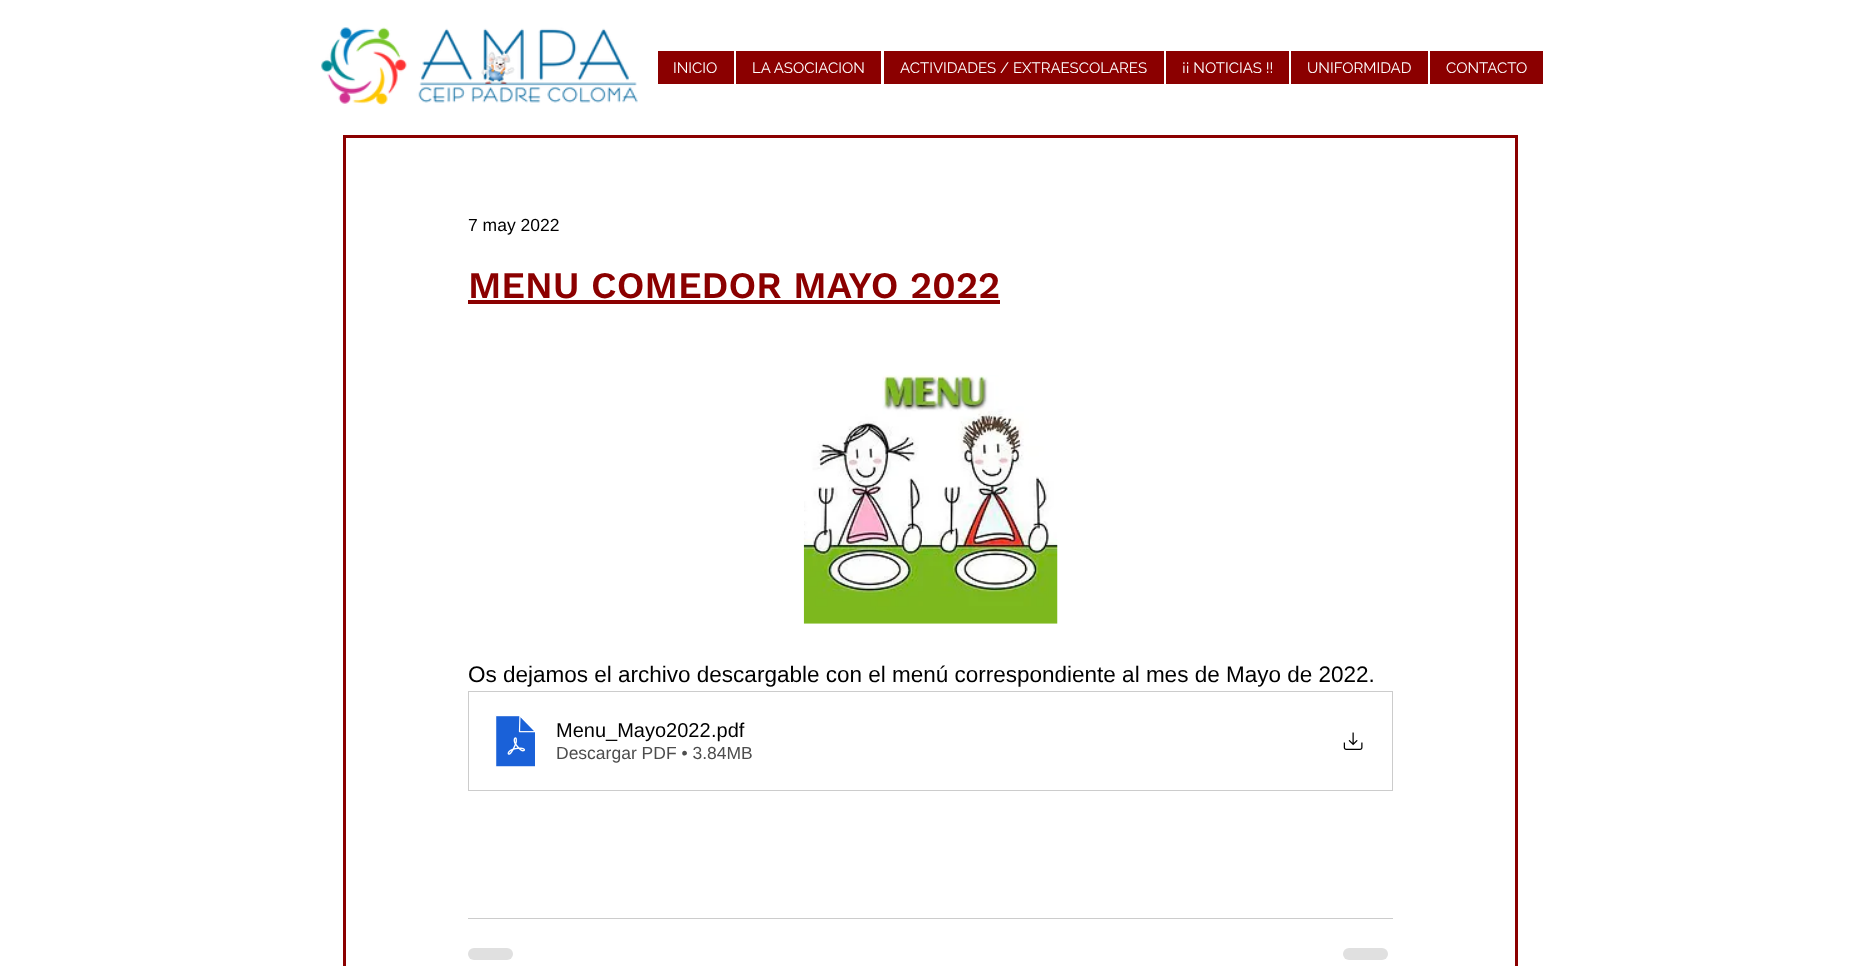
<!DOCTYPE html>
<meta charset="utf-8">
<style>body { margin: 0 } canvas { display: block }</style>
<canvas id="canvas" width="1862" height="966"></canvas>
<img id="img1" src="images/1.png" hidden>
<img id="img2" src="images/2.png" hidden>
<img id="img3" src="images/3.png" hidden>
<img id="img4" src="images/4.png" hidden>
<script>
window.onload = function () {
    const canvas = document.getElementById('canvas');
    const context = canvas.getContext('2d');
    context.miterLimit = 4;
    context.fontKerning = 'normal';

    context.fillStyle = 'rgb(255, 255, 255)';
    context.fillRect(0, 0, 1862, 966);
    context.drawImage(document.getElementById('img1'), 321, 27, 317, 79);
    context.fillStyle = 'rgb(139, 0, 0)';
    context.fillRect(658, 51, 76, 33);
    context.fillRect(736, 51, 145, 33);
    context.fillRect(884, 51, 280, 33);
    context.fillRect(1166, 51, 123, 33);
    context.fillRect(1291, 51, 137, 33);
    context.fillRect(1430, 51, 113, 33);
    context.strokeStyle = 'rgb(139, 0, 0)';
    context.lineWidth = 3;
    context.strokeRect(344.5, 136.5, 1172, 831);
    context.fillRect(468, 300, 532, 4);
    context.drawImage(document.getElementById('img2'), 803, 375, 255, 249);
    context.strokeStyle = 'rgb(204, 204, 204)';
    context.lineWidth = 1;
    context.strokeRect(468.5, 691.5, 924, 99);
    context.drawImage(document.getElementById('img3'), 495, 715, 40, 52);
    context.drawImage(document.getElementById('img4'), 1343, 732, 20, 18);
    context.fillStyle = 'rgb(204, 204, 204)';
    context.fillRect(468, 918, 925, 1);
    context.fillStyle = 'rgb(224, 224, 224)';
    context.beginPath();
    context.roundRect(468, 948, 45, 12, 6);
    context.fill();
    context.beginPath();
    context.roundRect(1343, 948, 45, 12, 6);
    context.fill();
    context.font = '15px Raleway';
    context.fillStyle = 'rgb(255, 255, 255)';
    context.fillText('INICIO', 673, 73);
    context.fillText('LA ASOCIACION', 752, 73);
    context.fillText('ACTIVIDADES / EXTRAESCOLARES', 900, 73);
    context.fillText('¡¡ NOTICIAS !!', 1182, 73);
    context.fillText('UNIFORMIDAD', 1307, 73);
    context.fillText('CONTACTO', 1446, 73);
    context.font = '17.5px Liberation Sans';
    context.fillStyle = 'rgb(0, 0, 0)';
    context.fillText('7 may 2022', 468, 231);
    context.font = '600 37.5px Work Sans';
    context.fillStyle = 'rgb(139, 0, 0)';
    context.fillText('MENU COMEDOR MAYO 2022', 468, 298);
    context.font = '22.5px Liberation Sans';
    context.fillStyle = 'rgb(0, 0, 0)';
    context.fillText('Os dejamos el archivo descargable con el menú correspondiente al mes de Mayo de 2022.', 468, 682);
    context.font = '20px Liberation Sans';
    context.fillText('Menu_Mayo2022', 556, 737);
    context.fillText('.pdf', 711, 737);
    context.font = '17.5px Liberation Sans';
    context.fillStyle = 'rgb(77, 77, 77)';
    context.fillText('Descargar PDF • 3.84MB', 556, 759);
};
</script>
